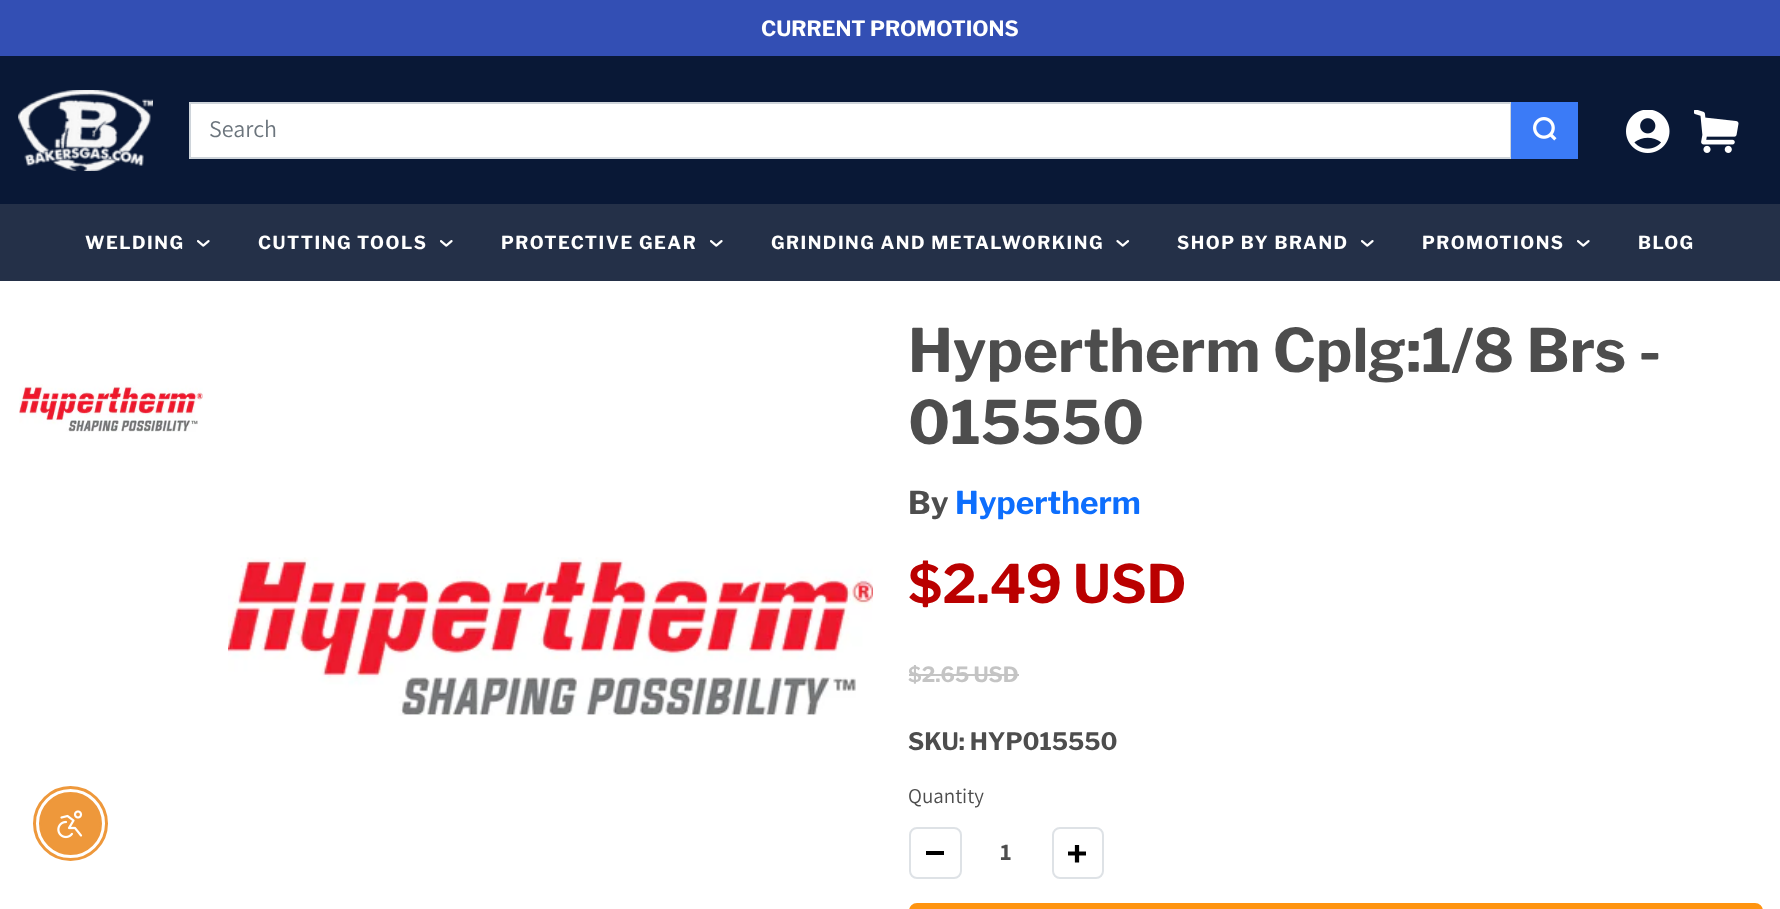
<!DOCTYPE html>
<meta charset="utf-8">
<style>body { margin: 0 } canvas { display: block }</style>
<canvas id="canvas" width="1780" height="909"></canvas>
<img id="img1" src="images/1.png" hidden>
<img id="img2" src="images/2.png" hidden>
<img id="img3" src="images/3.png" hidden>
<img id="img4" src="images/4.png" hidden>
<img id="img5" src="images/5.png" hidden>
<img id="img6" src="images/6.png" hidden>
<img id="img7" src="images/7.png" hidden>
<img id="img8" src="images/8.png" hidden>
<img id="img9" src="images/9.png" hidden>
<img id="img10" src="images/10.png" hidden>
<script>
window.onload = function () {
    const canvas = document.getElementById('canvas');
    const context = canvas.getContext('2d');
    context.miterLimit = 4;
    context.fontKerning = 'normal';

    context.fillStyle = 'rgb(255, 255, 255)';
    context.fillRect(0, 0, 1780, 909);
    context.beginPath();
    context.arc(70.5, 823.5, 36, 0, 2 * Math.PI);
    context.strokeStyle = 'rgb(238, 152, 59)';
    context.lineWidth = 3;
    context.stroke();
    context.fillStyle = 'rgb(238, 152, 59)';
    context.beginPath();
    context.arc(70.5, 823.5, 30.5, 0, 2 * Math.PI);
    context.fill();
    context.lineWidth = 2;
    context.stroke();
    context.drawImage(document.getElementById('img1'), 57, 810, 26, 29);
    context.fillStyle = 'rgb(51, 79, 180)';
    context.fillRect(0, 0, 1780, 56);
    context.fillStyle = 'rgb(9, 24, 54)';
    context.fillRect(0, 56, 1780, 148);
    context.drawImage(document.getElementById('img2'), 18, 90, 135, 81);
    context.fillStyle = 'rgb(255, 255, 255)';
    context.beginPath();
    context.rect(190, 103, 1321, 55);
    context.fill();
    context.strokeStyle = 'rgb(206, 212, 218)';
    context.stroke();
    context.fillStyle = 'rgb(59, 123, 247)';
    context.fillRect(1511, 102, 67, 57);
    context.drawImage(document.getElementById('img3'), 1533, 117, 24, 24);
    context.drawImage(document.getElementById('img4'), 1626, 110, 44, 43);
    context.drawImage(document.getElementById('img5'), 1694, 110, 45, 43);
    context.fillStyle = 'rgb(36, 48, 72)';
    context.fillRect(0, 204, 1780, 77);
    context.drawImage(document.getElementById('img6'), 197, 240, 13, 7);
    context.drawImage(document.getElementById('img6'), 440, 240, 13, 7);
    context.drawImage(document.getElementById('img6'), 710, 240, 13, 7);
    context.drawImage(document.getElementById('img7'), 1116, 240, 14, 7);
    context.drawImage(document.getElementById('img6'), 1361, 240, 13, 7);
    context.drawImage(document.getElementById('img6'), 1577, 240, 13, 7);
    context.drawImage(document.getElementById('img8'), 19, 384, 184, 48);
    context.drawImage(document.getElementById('img9'), 228, 557, 645, 159);
    context.fillStyle = 'rgb(196, 196, 196)';
    context.fillRect(909, 674, 110, 2);
    context.beginPath();
    context.roundRect(910, 828, 51, 50, 7);
    context.strokeStyle = 'rgb(222, 226, 230)';
    context.stroke();
    context.fillStyle = 'rgb(0, 0, 0)';
    context.fillRect(926, 851, 18, 4);
    context.beginPath();
    context.roundRect(1053, 828, 50, 50, 7);
    context.stroke();
    context.drawImage(document.getElementById('img10'), 1068, 845, 18, 18);
    context.fillStyle = 'rgb(255, 148, 16)';
    context.beginPath();
    context.roundRect(910, 904, 852, 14, 7);
    context.fill();
    context.strokeStyle = 'rgb(255, 148, 16)';
    context.stroke();
    context.font = 'bold 21px Libre Franklin';
    context.fillStyle = 'rgb(255, 255, 255)';
    context.fillText('CURRENT PROMOTIONS', 761, 36);
    context.font = '24px Assistant';
    context.fillStyle = 'rgb(108, 117, 125)';
    context.fillText('Search', 209, 137);
    context.letterSpacing = '1.5px';
    context.font = 'bold 18px Libre Franklin';
    context.fillStyle = 'rgb(255, 255, 255)';
    context.fillText('WELDING', 85, 249);
    context.fillText('CUTTING TOOLS', 258, 249);
    context.fillText('PROTECTIVE GEAR', 501, 249);
    context.fillText('GRINDING AND METALWORKING', 771, 249);
    context.fillText('SHOP BY BRAND', 1177, 249);
    context.fillText('PROMOTIONS', 1422, 249);
    context.fillText('BLOG', 1638, 249);
    context.letterSpacing = '0px';
    context.font = 'bold 59.75px Libre Franklin';
    context.fillStyle = 'rgb(77, 77, 77)';
    context.fillText('Hypertherm Cplg:1/8 Brs -', 908, 372);
    context.fillText('015550', 908, 444);
    context.font = 'bold 31.5px Libre Franklin';
    context.fillText('By', 908, 514);
    context.fillStyle = 'rgb(13, 110, 253)';
    context.fillText('Hypertherm', 955, 514);
    context.font = 'bold 52.75px Libre Franklin';
    context.fillStyle = 'rgb(186, 0, 0)';
    context.fillText('$2.49 USD', 908, 603);
    context.font = 'bold 21px Libre Franklin';
    context.fillStyle = 'rgb(196, 196, 196)';
    context.fillText('$2.65 USD', 908, 682);
    context.font = 'bold 24px Libre Franklin';
    context.fillStyle = 'rgb(77, 77, 77)';
    context.fillText('SKU: HYP015550', 908, 750);
    context.font = '21px Assistant';
    context.fillText('Quantity', 908, 803);
    context.font = 'bold 24px Assistant';
    context.fillText('1', 1000, 860);
};
</script>
